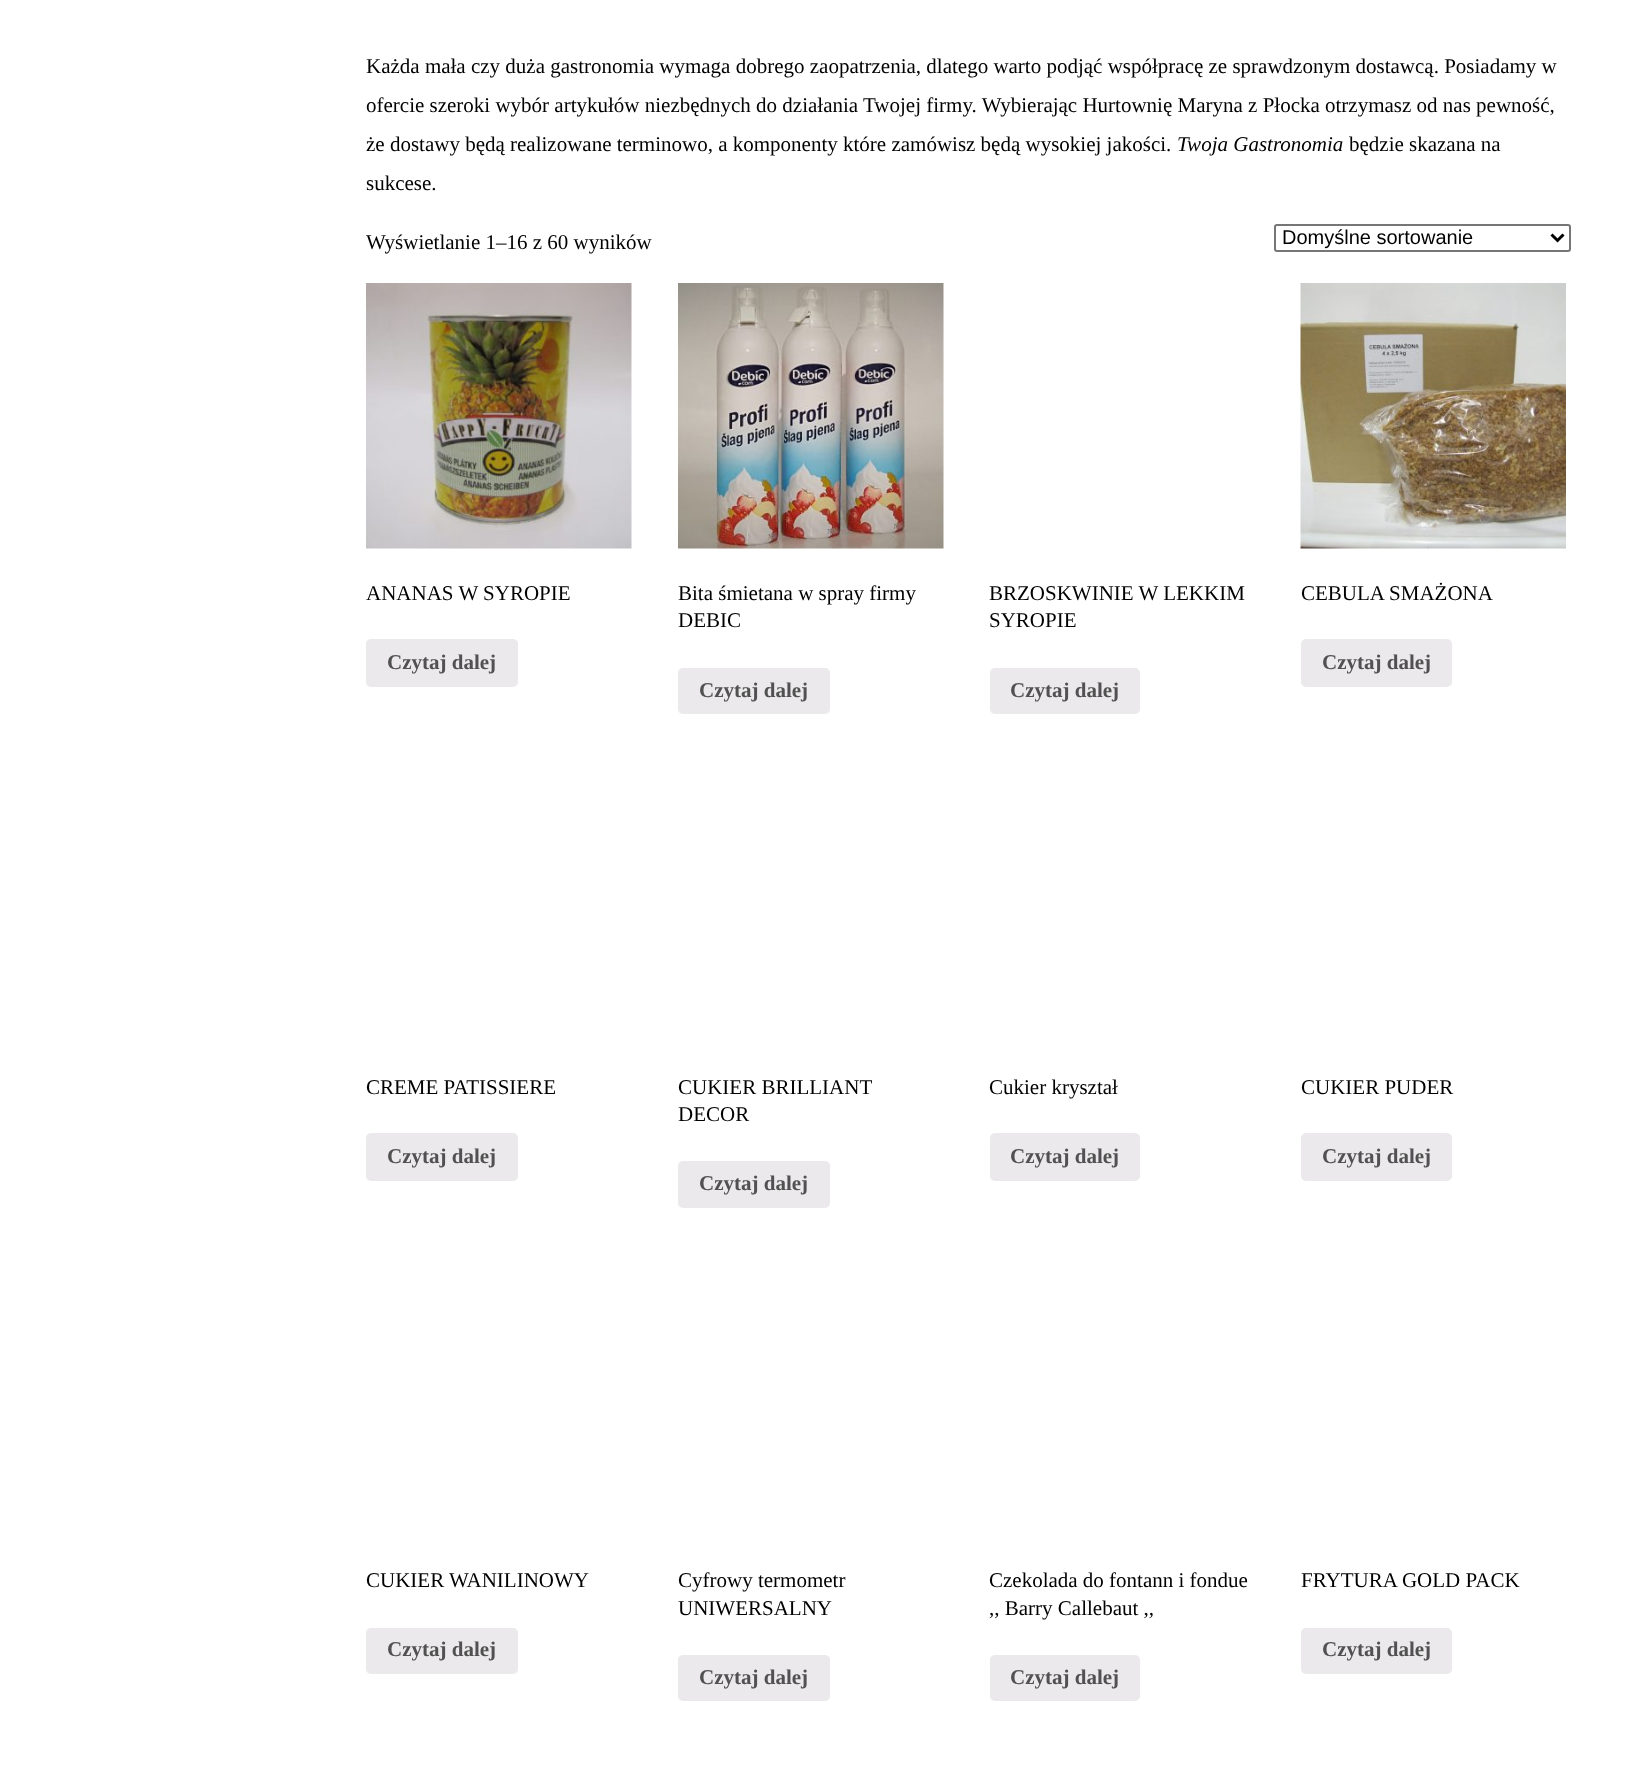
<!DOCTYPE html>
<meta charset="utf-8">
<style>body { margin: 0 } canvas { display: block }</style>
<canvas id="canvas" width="1637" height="1766"></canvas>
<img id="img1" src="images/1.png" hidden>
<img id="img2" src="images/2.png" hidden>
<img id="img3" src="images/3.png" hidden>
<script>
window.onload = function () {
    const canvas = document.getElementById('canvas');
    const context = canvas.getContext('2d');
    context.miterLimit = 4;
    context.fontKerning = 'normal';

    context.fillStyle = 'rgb(255, 255, 255)';
    context.fillRect(0, 0, 1637, 1766);
    context.beginPath();
    context.roundRect(1275, 225, 295, 26, 2);
    context.strokeStyle = 'rgb(118, 118, 118)';
    context.lineWidth = 2;
    context.stroke();
    context.beginPath();
    context.moveTo(1551.5, 234.5);
    context.lineTo(1557.5, 240.5);
    context.lineTo(1563.5, 234.5);
    context.strokeStyle = 'rgb(0, 0, 0)';
    context.lineWidth = 3;
    context.stroke();
    context.drawImage(document.getElementById('img1'), 366, 283, 266, 266);
    context.fillStyle = 'rgb(235, 233, 235)';
    context.beginPath();
    context.roundRect(366, 639, 152, 48, 5);
    context.fill();
    context.drawImage(document.getElementById('img2'), 678, 283, 266, 266);
    context.beginPath();
    context.roundRect(678, 668, 152, 46, 5);
    context.fill();
    context.beginPath();
    context.roundRect(990, 668, 150, 46, 5);
    context.fill();
    context.drawImage(document.getElementById('img3'), 1300, 283, 266, 266);
    context.beginPath();
    context.roundRect(1301, 639, 151, 48, 5);
    context.fill();
    context.beginPath();
    context.roundRect(366, 1133, 152, 48, 5);
    context.fill();
    context.beginPath();
    context.roundRect(678, 1161, 152, 47, 5);
    context.fill();
    context.beginPath();
    context.roundRect(990, 1133, 150, 48, 5);
    context.fill();
    context.beginPath();
    context.roundRect(1301, 1133, 151, 48, 5);
    context.fill();
    context.beginPath();
    context.roundRect(366, 1628, 152, 46, 5);
    context.fill();
    context.beginPath();
    context.roundRect(678, 1655, 152, 46, 5);
    context.fill();
    context.beginPath();
    context.roundRect(990, 1655, 150, 46, 5);
    context.fill();
    context.beginPath();
    context.roundRect(1301, 1628, 151, 46, 5);
    context.fill();
    context.font = '21px Liberation Serif';
    context.fillStyle = 'rgb(0, 0, 0)';
    context.fillText('Każda mała czy duża gastronomia wymaga dobrego zaopatrzenia, dlatego warto podjąć współpracę ze sprawdzonym dostawcą. Posiadamy w', 366, 73);
    context.fillText('ofercie szeroki wybór artykułów niezbędnych do działania Twojej firmy. Wybierając Hurtownię Maryna z Płocka otrzymasz od nas pewność,', 366, 112);
    context.fillText('że dostawy będą realizowane terminowo, a komponenty które zamówisz będą wysokiej jakości.', 366, 151);
    context.font = 'italic 21px Liberation Serif';
    context.fillText('Twoja Gastronomia', 1177, 151);
    context.font = '21px Liberation Serif';
    context.fillText('będzie skazana na', 1349, 151);
    context.fillText('sukcese.', 366, 190);
    context.fillText('Wyświetlanie 1–16 z 60 wyników', 366, 249);
    context.font = '20px Liberation Sans';
    context.fillText('Domyślne sortowanie', 1282, 244);
    context.font = '21px Liberation Serif';
    context.fillText('ANANAS W SYROPIE', 366, 600);
    context.font = 'bold 21px Liberation Serif';
    context.fillStyle = 'rgb(81, 81, 81)';
    context.fillText('Czytaj dalej', 387, 669);
    context.font = '21px Liberation Serif';
    context.fillStyle = 'rgb(0, 0, 0)';
    context.fillText('Bita śmietana w spray firmy', 678, 600);
    context.fillText('DEBIC', 678, 627);
    context.font = 'bold 21px Liberation Serif';
    context.fillStyle = 'rgb(81, 81, 81)';
    context.fillText('Czytaj dalej', 699, 697);
    context.font = '21px Liberation Serif';
    context.fillStyle = 'rgb(0, 0, 0)';
    context.fillText('BRZOSKWINIE W LEKKIM', 989, 600);
    context.fillText('SYROPIE', 989, 627);
    context.font = 'bold 21px Liberation Serif';
    context.fillStyle = 'rgb(81, 81, 81)';
    context.fillText('Czytaj dalej', 1010, 697);
    context.font = '21px Liberation Serif';
    context.fillStyle = 'rgb(0, 0, 0)';
    context.fillText('CEBULA SMAŻONA', 1301, 600);
    context.font = 'bold 21px Liberation Serif';
    context.fillStyle = 'rgb(81, 81, 81)';
    context.fillText('Czytaj dalej', 1322, 669);
    context.font = '21px Liberation Serif';
    context.fillStyle = 'rgb(0, 0, 0)';
    context.fillText('CREME PATISSIERE', 366, 1094);
    context.font = 'bold 21px Liberation Serif';
    context.fillStyle = 'rgb(81, 81, 81)';
    context.fillText('Czytaj dalej', 387, 1163);
    context.font = '21px Liberation Serif';
    context.fillStyle = 'rgb(0, 0, 0)';
    context.fillText('CUKIER BRILLIANT', 678, 1094);
    context.fillText('DECOR', 678, 1121);
    context.font = 'bold 21px Liberation Serif';
    context.fillStyle = 'rgb(81, 81, 81)';
    context.fillText('Czytaj dalej', 699, 1190);
    context.font = '21px Liberation Serif';
    context.fillStyle = 'rgb(0, 0, 0)';
    context.fillText('Cukier kryształ', 989, 1094);
    context.font = 'bold 21px Liberation Serif';
    context.fillStyle = 'rgb(81, 81, 81)';
    context.fillText('Czytaj dalej', 1010, 1163);
    context.font = '21px Liberation Serif';
    context.fillStyle = 'rgb(0, 0, 0)';
    context.fillText('CUKIER PUDER', 1301, 1094);
    context.font = 'bold 21px Liberation Serif';
    context.fillStyle = 'rgb(81, 81, 81)';
    context.fillText('Czytaj dalej', 1322, 1163);
    context.font = '21px Liberation Serif';
    context.fillStyle = 'rgb(0, 0, 0)';
    context.fillText('CUKIER WANILINOWY', 366, 1587);
    context.font = 'bold 21px Liberation Serif';
    context.fillStyle = 'rgb(81, 81, 81)';
    context.fillText('Czytaj dalej', 387, 1656);
    context.font = '21px Liberation Serif';
    context.fillStyle = 'rgb(0, 0, 0)';
    context.fillText('Cyfrowy termometr', 678, 1587);
    context.fillText('UNIWERSALNY', 678, 1615);
    context.font = 'bold 21px Liberation Serif';
    context.fillStyle = 'rgb(81, 81, 81)';
    context.fillText('Czytaj dalej', 699, 1684);
    context.font = '21px Liberation Serif';
    context.fillStyle = 'rgb(0, 0, 0)';
    context.fillText('Czekolada do fontann i fondue', 989, 1587);
    context.fillText(',, Barry Callebaut ,,', 989, 1615);
    context.font = 'bold 21px Liberation Serif';
    context.fillStyle = 'rgb(81, 81, 81)';
    context.fillText('Czytaj dalej', 1010, 1684);
    context.font = '21px Liberation Serif';
    context.fillStyle = 'rgb(0, 0, 0)';
    context.fillText('FRYTURA GOLD PACK', 1301, 1587);
    context.font = 'bold 21px Liberation Serif';
    context.fillStyle = 'rgb(81, 81, 81)';
    context.fillText('Czytaj dalej', 1322, 1656);
};
</script>
